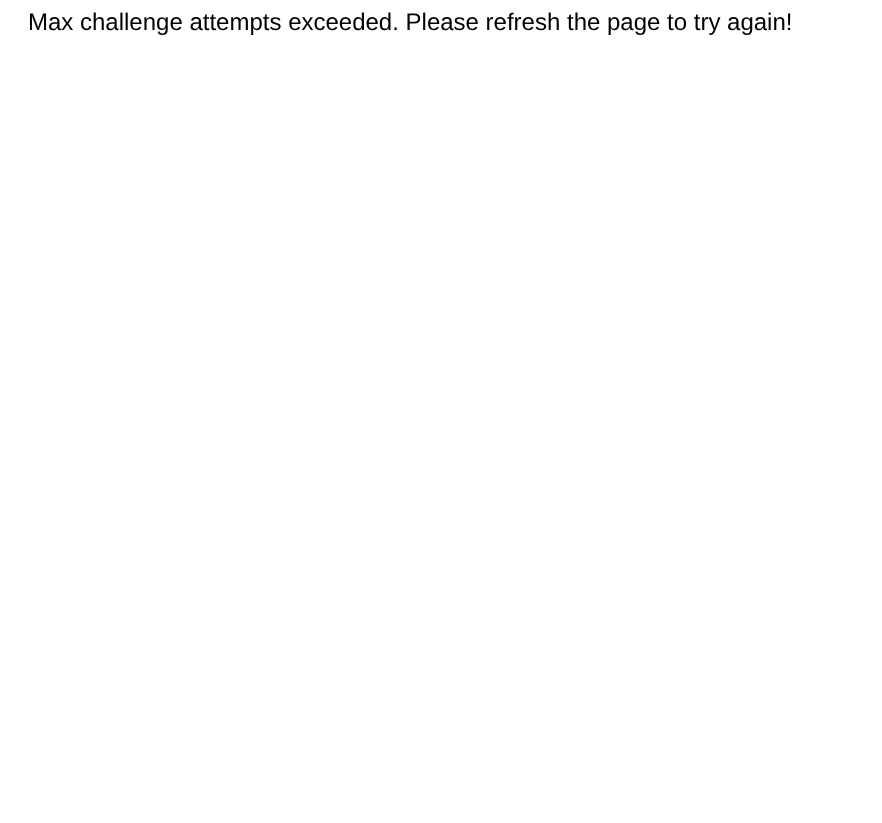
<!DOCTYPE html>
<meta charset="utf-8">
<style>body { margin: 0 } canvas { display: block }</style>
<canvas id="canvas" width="882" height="823"></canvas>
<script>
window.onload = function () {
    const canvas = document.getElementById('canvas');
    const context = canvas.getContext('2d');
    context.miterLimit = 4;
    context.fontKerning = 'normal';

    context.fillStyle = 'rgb(255, 255, 255)';
    context.fillRect(0, 0, 882, 823);
    context.font = '24px Liberation Sans';
    context.fillStyle = 'rgb(0, 0, 0)';
    context.fillText('Max challenge attempts exceeded. Please refresh the page to try again!', 28, 30);
};
</script>
